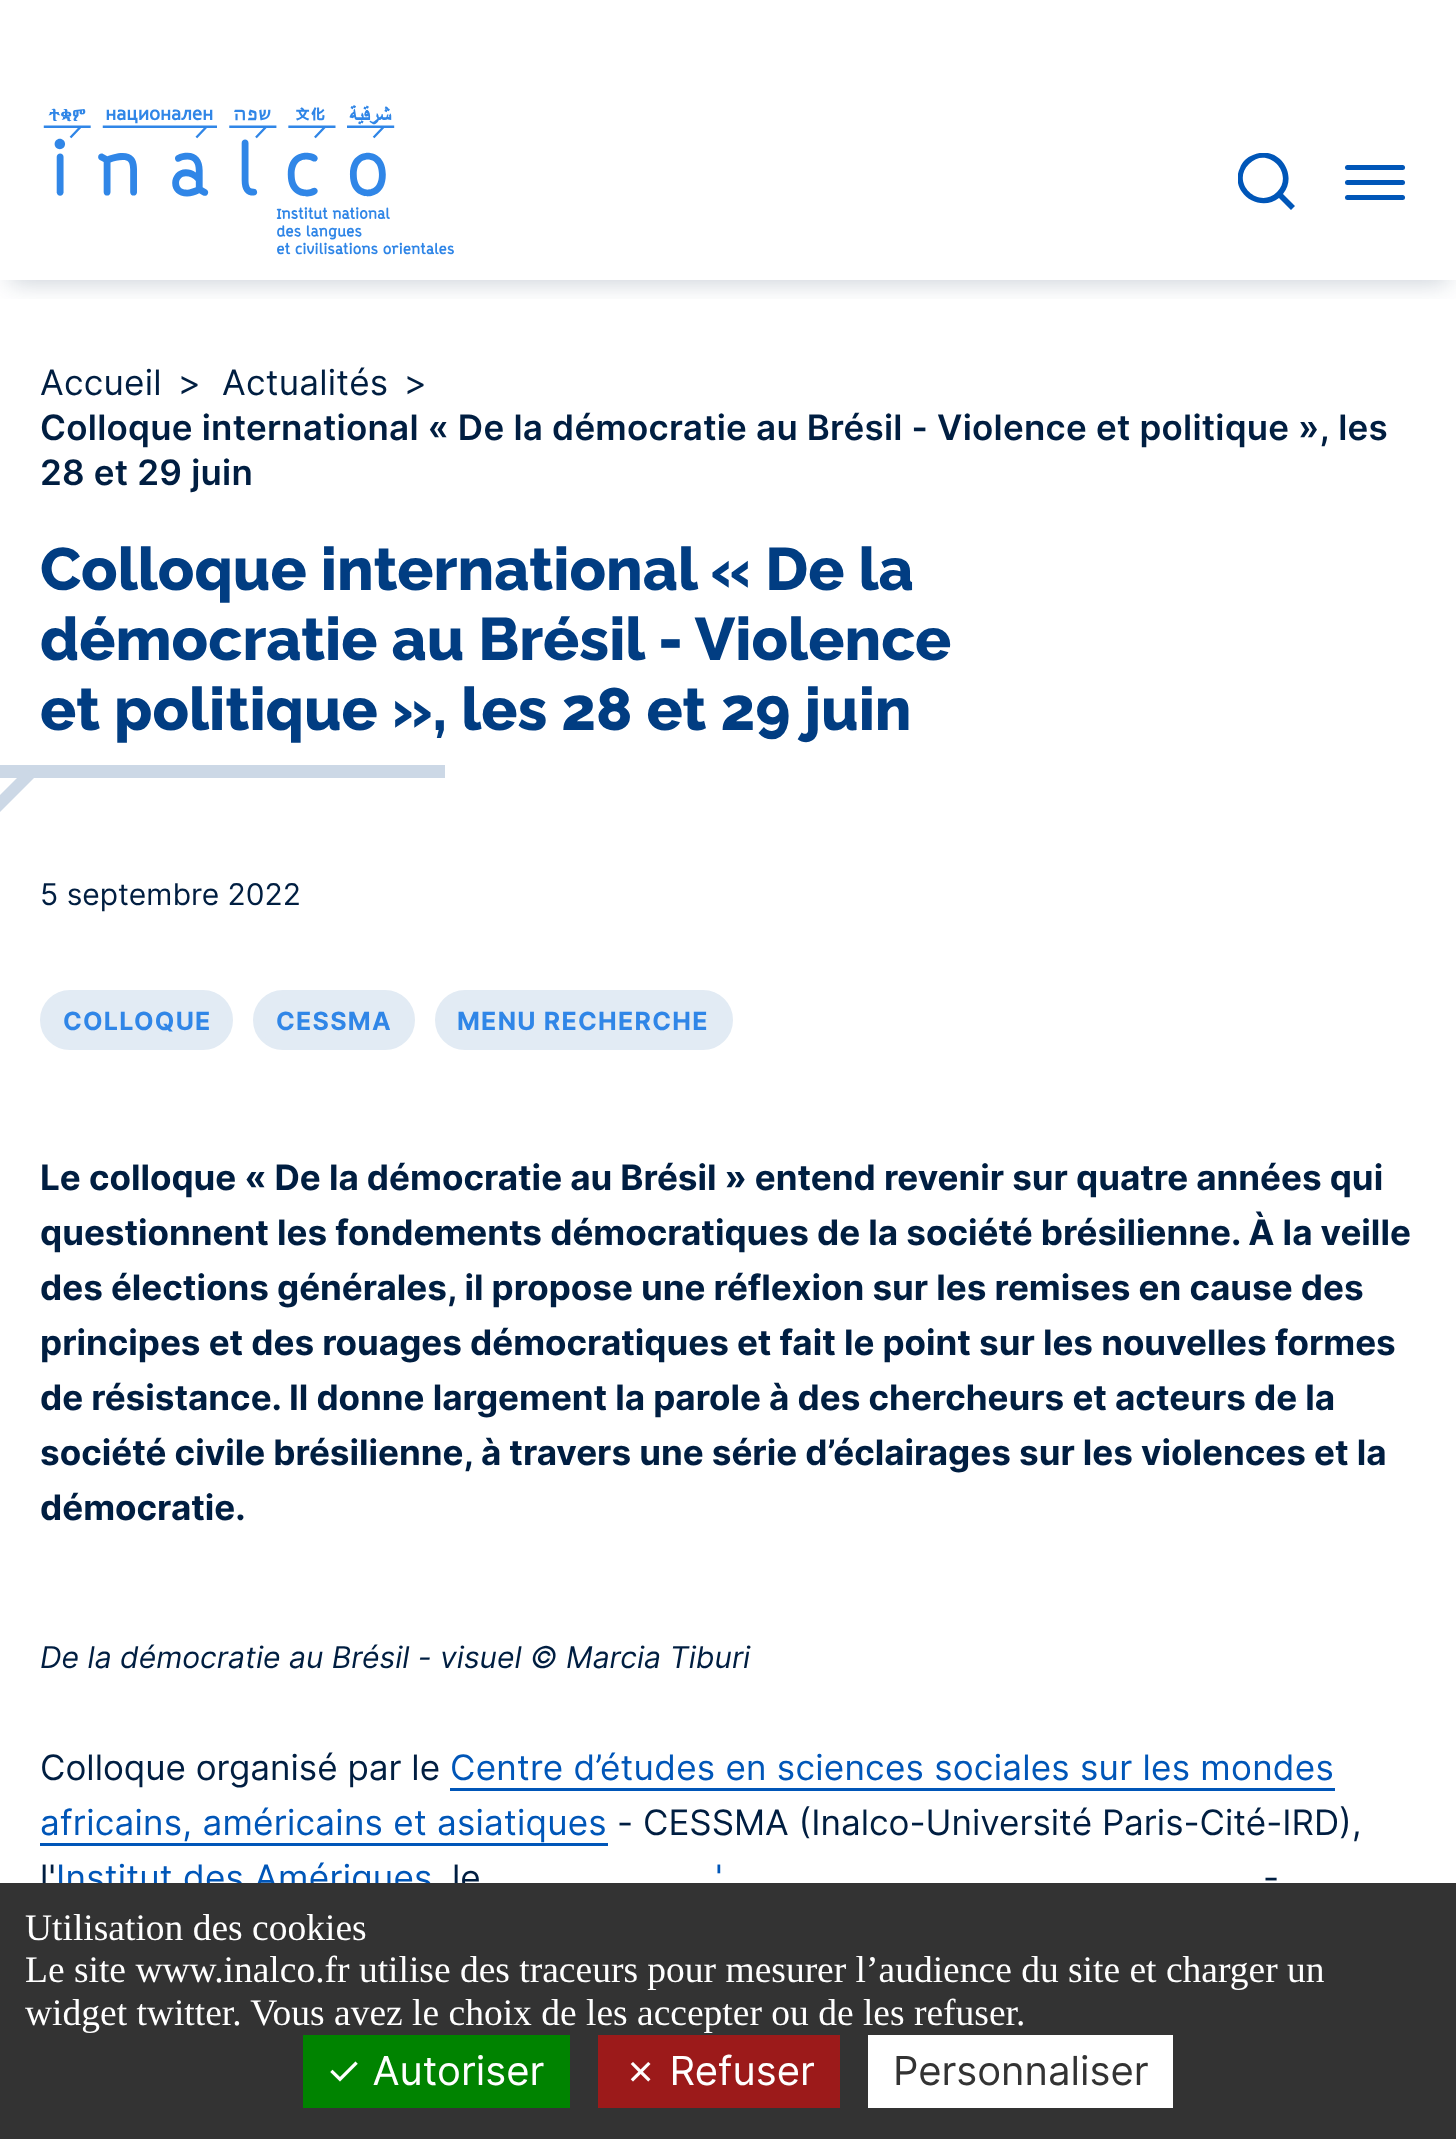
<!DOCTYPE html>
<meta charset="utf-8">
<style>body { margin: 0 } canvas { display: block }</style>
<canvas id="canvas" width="1456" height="2139"></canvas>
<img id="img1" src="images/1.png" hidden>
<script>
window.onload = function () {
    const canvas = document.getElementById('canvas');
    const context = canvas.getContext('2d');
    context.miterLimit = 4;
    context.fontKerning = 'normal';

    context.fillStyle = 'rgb(255, 255, 255)';
    context.fillRect(0, 0, 1456, 2139);
    context.save();
    context.beginPath();
    context.rect(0, 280, 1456, 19);
    context.clip();
    context.fillStyle = 'rgba(0, 30, 65, 0.2)';
    context.filter = 'blur(12.5px)';
    context.beginPath();
    context.rect(10, 103, 1438, 180);
    context.fill();
    context.filter = 'none';
    context.restore();
    context.drawImage(document.getElementById('img1'), 43, 105, 411, 150);
    context.save();
    context.beginPath();
    context.rect(1238, 153, 57, 57);
    context.clip();
    context.fillStyle = 'rgb(0, 86, 184)';
    context.beginPath();
    context.moveTo(1283, 194);
    context.lineTo(1295, 206);
    context.lineTo(1291, 210);
    context.lineTo(1279, 198);
    context.bezierCurveTo(1268, 207, 1250, 204, 1242, 192);
    context.bezierCurveTo(1237, 185, 1236, 176, 1240, 168);
    context.bezierCurveTo(1242, 162, 1247, 157, 1253, 155);
    context.bezierCurveTo(1278, 144, 1299, 174, 1283, 194);
    context.closePath();
    context.moveTo(1277, 192);
    context.bezierCurveTo(1295, 174, 1268, 145, 1249, 164);
    context.bezierCurveTo(1230, 183, 1259, 210, 1277, 192);
    context.closePath();
    context.fill();
    context.restore();
    context.fillStyle = 'rgb(0, 86, 184)';
    context.beginPath();
    context.roundRect(1345, 165, 60, 5, 2.5);
    context.fill();
    context.beginPath();
    context.roundRect(1345, 180, 60, 5, 2.5);
    context.fill();
    context.beginPath();
    context.roundRect(1345, 195, 60, 5, 2.5);
    context.fill();
    context.fillStyle = 'rgb(204, 216, 230)';
    context.fillRect(0, 765, 445, 13);
    context.beginPath();
    context.moveTo(35, 777);
    context.lineTo(-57, 869);
    context.lineTo(-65, 860);
    context.lineTo(27, 768);
    context.closePath();
    context.fill();
    context.fillStyle = 'rgb(226, 235, 244)';
    context.beginPath();
    context.roundRect(42.5, 992.5, 188, 55, 27.5);
    context.fill();
    context.strokeStyle = 'rgb(226, 235, 244)';
    context.lineWidth = 5;
    context.stroke();
    context.beginPath();
    context.roundRect(255.5, 992.5, 157, 55, 27.5);
    context.fill();
    context.stroke();
    context.beginPath();
    context.roundRect(437.5, 992.5, 293, 55, 27.5);
    context.fill();
    context.stroke();
    context.fillStyle = 'rgb(0, 86, 184)';
    context.fillRect(450, 1788, 885, 3);
    context.fillRect(40, 1843, 568, 3);
    context.letterSpacing = '0.25px';
    context.font = '35px Inter';
    context.fillStyle = 'rgb(0, 30, 65)';
    context.fillText('Accueil', 40, 395);
    context.letterSpacing = '0px';
    context.fillText('>', 178, 395);
    context.letterSpacing = '0.25px';
    context.fillText('Actualités', 222, 395);
    context.letterSpacing = '0px';
    context.fillText('>', 404, 395);
    context.letterSpacing = '0.25px';
    context.font = '600 35px Inter';
    context.fillText('Colloque international « De la démocratie au Brésil - Violence et politique », les', 40, 440);
    context.fillText('28 et 29 juin', 40, 485);
    context.letterSpacing = '0px';
    context.font = '800 60px Raleway';
    context.fillStyle = 'rgb(1, 61, 130)';
    context.fillText('Colloque international « De la', 40, 590);
    context.fillText('démocratie au Brésil - Violence', 40, 660);
    context.fillText('et politique », les 28 et 29 juin', 40, 730);
    context.font = '30px Inter';
    context.fillStyle = 'rgb(0, 30, 65)';
    context.fillText('5 septembre 2022', 40, 905);
    context.letterSpacing = '1.25px';
    context.font = 'bold 25px Inter';
    context.fillStyle = 'rgb(48, 134, 231)';
    context.fillText('COLLOQUE', 63, 1030);
    context.fillText('CESSMA', 276, 1030);
    context.fillText('MENU RECHERCHE', 457, 1030);
    context.letterSpacing = '0px';
    context.font = 'bold 35px Inter';
    context.fillStyle = 'rgb(0, 30, 65)';
    context.fillText('Le colloque « De la démocratie au Brésil » entend revenir sur quatre années qui', 40, 1190);
    context.fillText('questionnent les fondements démocratiques de la société brésilienne. À la veille', 40, 1245);
    context.fillText('des élections générales, il propose une réflexion sur les remises en cause des', 40, 1300);
    context.fillText('principes et des rouages démocratiques et fait le point sur les nouvelles formes', 40, 1355);
    context.fillText('de résistance. Il donne largement la parole à des chercheurs et acteurs de la', 40, 1410);
    context.fillText('société civile brésilienne, à travers une série d’éclairages sur les violences et la', 40, 1465);
    context.fillText('démocratie.', 40, 1520);
    context.font = 'italic 30px Inter';
    context.fillText('De la démocratie au Brésil - visuel © Marcia Tiburi', 40, 1668);
    context.font = '35px Inter';
    context.fillText('Colloque organisé par le', 40, 1780);
    context.letterSpacing = '0.25px';
    context.fillStyle = 'rgb(0, 86, 184)';
    context.fillText('Centre d’études en sciences sociales sur les mondes', 450, 1780);
    context.fillText('africains, américains et asiatiques', 40, 1835);
    context.letterSpacing = '0px';
    context.fillStyle = 'rgb(0, 30, 65)';
    context.fillText('- CESSMA (Inalco-Université Paris-Cité-IRD),', 617, 1835);
    context.fillText('l\'', 40, 1890);
    context.letterSpacing = '0.25px';
    context.fillStyle = 'rgb(0, 86, 184)';
    context.fillText('Institut des Amériques', 56, 1890);
    context.letterSpacing = '0px';
    context.fillStyle = 'rgb(0, 30, 65)';
    context.fillText('le', 452, 1890);
    context.letterSpacing = '0.25px';
    context.fillStyle = 'rgb(0, 86, 184)';
    context.fillText('\'', 715, 1890);
    context.letterSpacing = '0px';
    context.fillStyle = 'rgb(0, 30, 65)';
    context.fillText('-', 1263, 1890);
    context.fillStyle = 'rgb(51, 51, 51)';
    context.fillRect(0, 1883, 1456, 256);
    context.font = '37.5px Liberation Serif';
    context.fillStyle = 'rgb(255, 255, 255)';
    context.fillText('Utilisation des cookies', 25, 1940);
    context.fillText('Le site www.inalco.fr utilise des traceurs pour mesurer l’audience du site et charger un', 25, 1982);
    context.fillText('widget twitter. Vous avez le choix de les accepter ou de les refuser.', 25, 2025);
    context.fillStyle = 'rgb(0, 131, 0)';
    context.fillRect(303, 2035, 267, 73);
    context.font = '40px Inter';
    context.fillStyle = 'rgb(255, 255, 255)';
    context.fillText('✓ Autoriser', 326, 2085);
    context.fillStyle = 'rgb(156, 26, 26)';
    context.fillRect(598, 2035, 242, 73);
    context.fillStyle = 'rgb(255, 255, 255)';
    context.fillText('✗ Refuser', 623, 2085);
    context.fillRect(868, 2035, 305, 73);
    context.fillStyle = 'rgb(51, 51, 51)';
    context.fillText('Personnaliser', 893, 2085);
};
</script>
